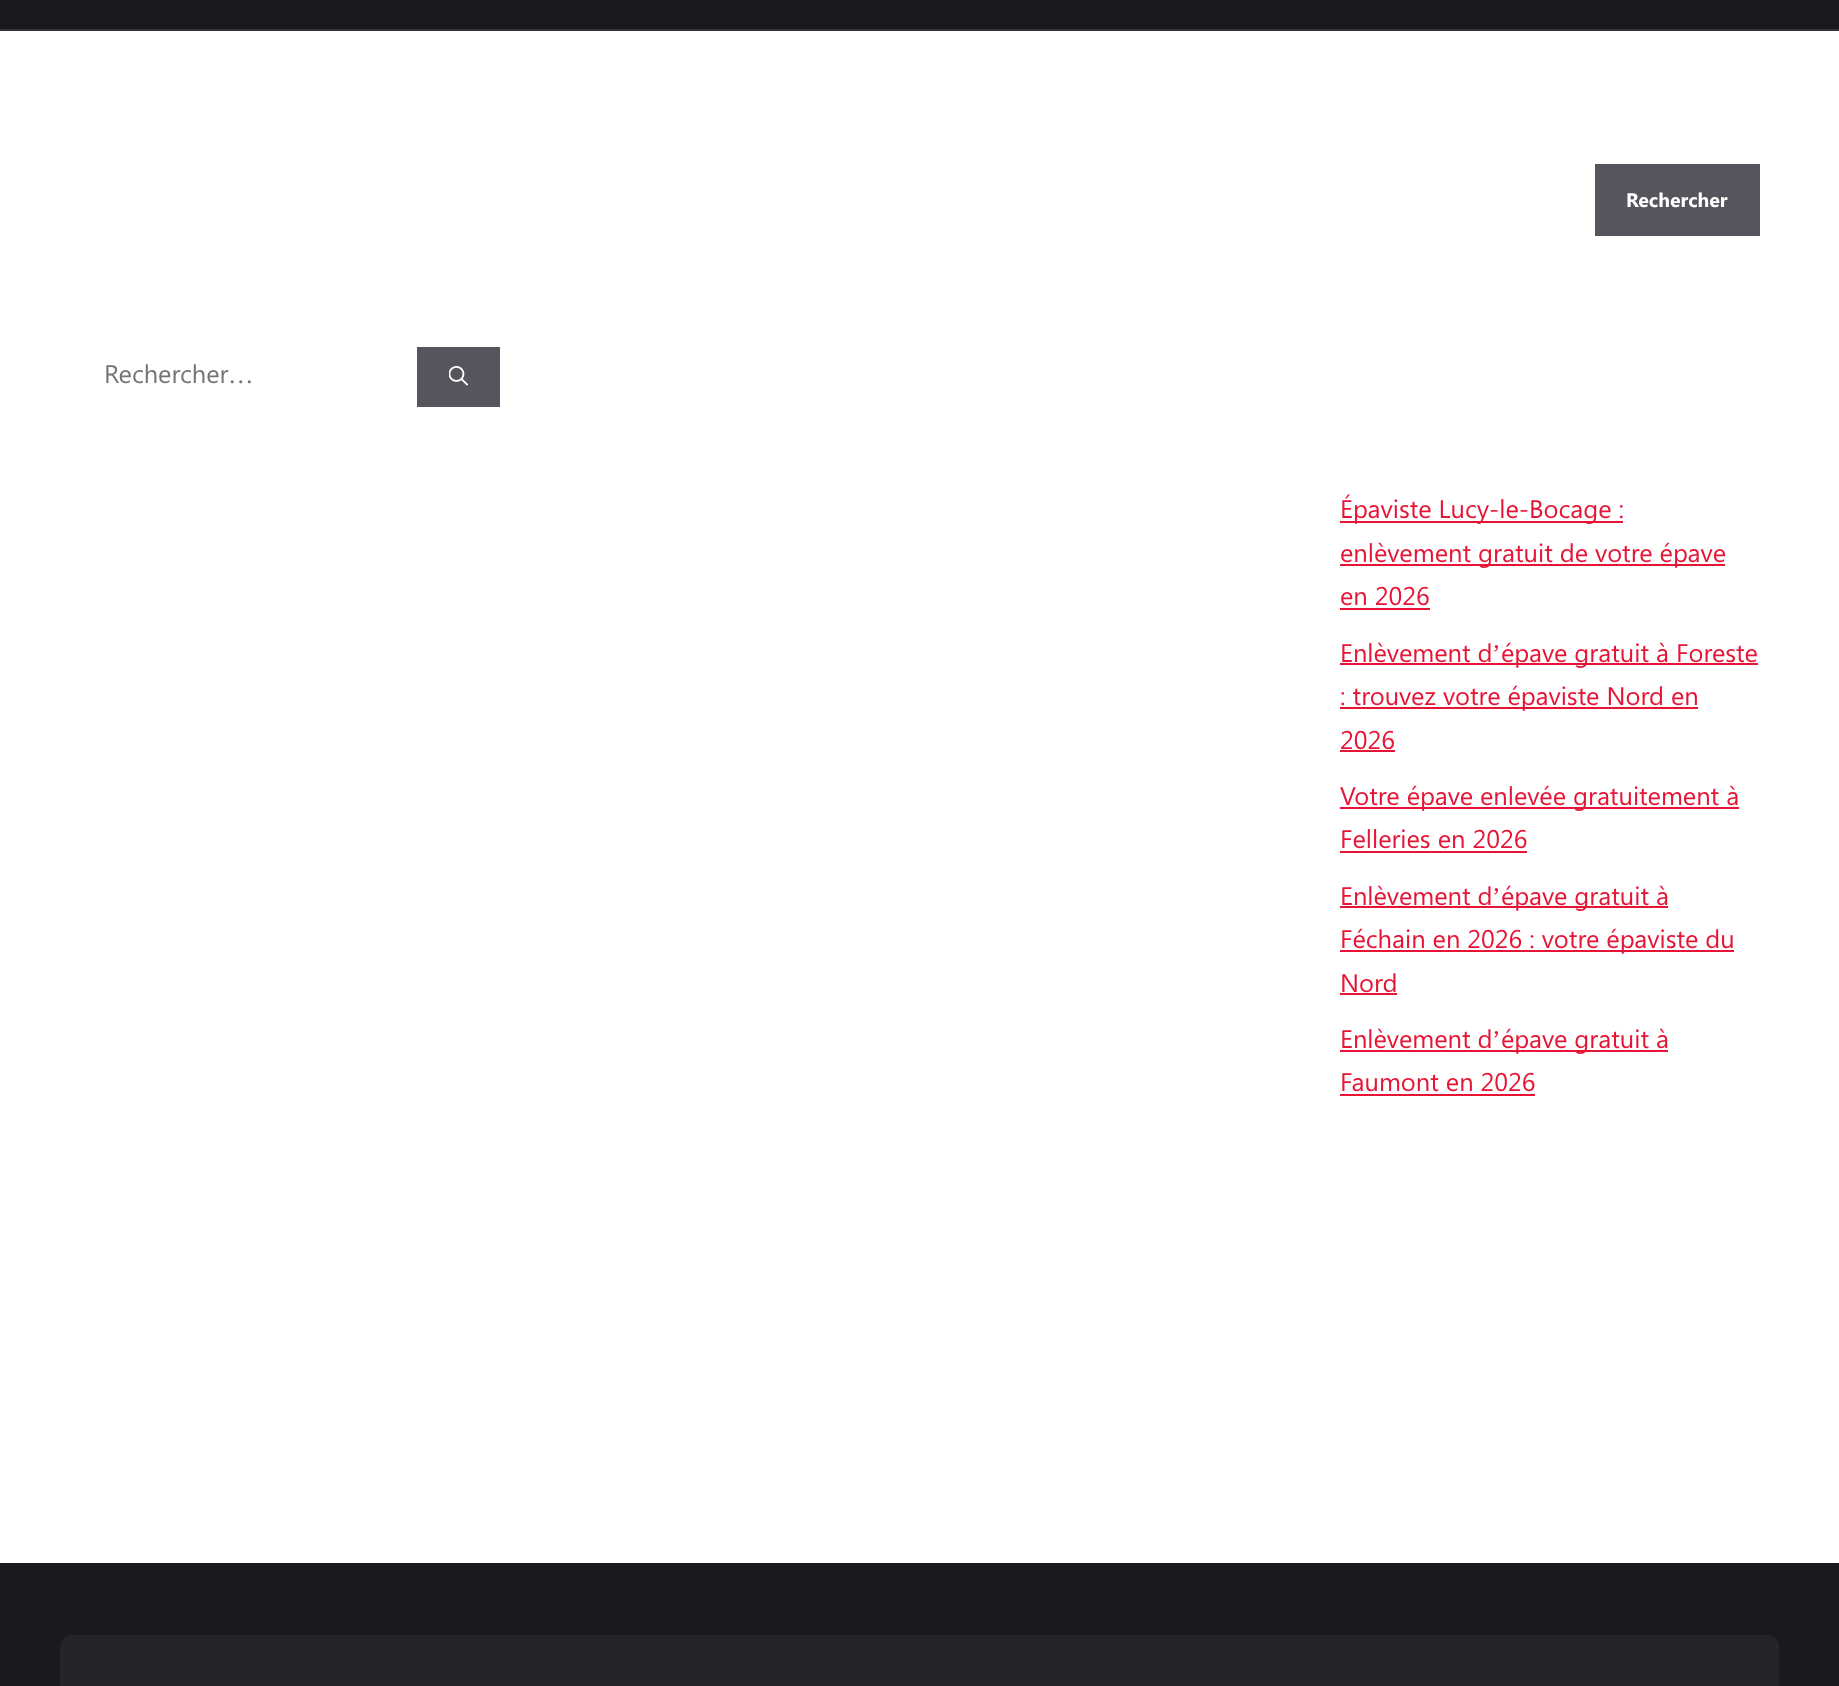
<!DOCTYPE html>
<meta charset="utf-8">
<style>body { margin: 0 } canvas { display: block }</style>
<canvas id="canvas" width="1839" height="1686"></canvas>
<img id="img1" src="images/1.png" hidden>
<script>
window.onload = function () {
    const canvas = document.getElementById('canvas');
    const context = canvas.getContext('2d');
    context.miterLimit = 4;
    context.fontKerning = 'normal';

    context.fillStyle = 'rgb(255, 255, 255)';
    context.fillRect(0, 0, 1839, 1686);
    context.fillStyle = 'rgb(25, 25, 30)';
    context.fillRect(0, 0, 1839, 29);
    context.fillStyle = 'rgb(51, 51, 54)';
    context.fillRect(0, 29, 1839, 2);
    context.fillStyle = 'rgb(85, 85, 94)';
    context.fillRect(417, 347, 83, 60);
    context.drawImage(document.getElementById('img1'), 449, 366, 19, 20);
    context.fillRect(1595, 164, 165, 72);
    context.fillStyle = 'rgb(230, 21, 53)';
    context.fillRect(1340, 521, 283, 2);
    context.fillRect(1340, 564, 385, 2);
    context.fillRect(1340, 608, 90, 2);
    context.fillRect(1340, 663, 418, 2);
    context.fillRect(1340, 707, 358, 2);
    context.fillRect(1340, 750, 55, 2);
    context.fillRect(1340, 807, 399, 2);
    context.fillRect(1340, 851, 187, 2);
    context.fillRect(1340, 906, 328, 2);
    context.fillRect(1340, 950, 394, 2);
    context.fillRect(1340, 993, 57, 2);
    context.fillRect(1340, 1050, 328, 2);
    context.fillRect(1340, 1094, 195, 2);
    context.fillStyle = 'rgb(25, 25, 30)';
    context.fillRect(0, 1563, 1839, 123);
    context.fillStyle = 'rgb(37, 37, 41)';
    context.beginPath();
    context.roundRect(60, 1635, 1719, 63, 12);
    context.fill();
    context.font = '25.5px Segoe UI';
    context.fillStyle = 'rgb(117, 117, 117)';
    context.fillText('Rechercher', 104, 383);
    context.font = '25.5px Liberation Serif';
    context.fillText('…', 228, 383);
    context.font = 'bold 19.5px Segoe UI';
    context.fillStyle = 'rgb(255, 255, 255)';
    context.fillText('Rechercher', 1626, 207);
    context.font = '25.5px Segoe UI';
    context.fillStyle = 'rgb(230, 21, 53)';
    context.fillText('Épaviste Lucy-le-Bocage :', 1340, 518);
    context.fillText('enlèvement gratuit de votre épave', 1340, 562);
    context.fillText('en 2026', 1340, 605);
    context.fillText('Enlèvement d', 1340, 662);
    context.font = '25.5px Liberation Serif';
    context.fillText('’', 1492, 662);
    context.font = '25.5px Segoe UI';
    context.fillText('épave gratuit à Foreste', 1501, 662);
    context.fillText(': trouvez votre épaviste Nord en', 1340, 705);
    context.fillText('2026', 1340, 749);
    context.fillText('Votre épave enlevée gratuitement à', 1340, 805);
    context.fillText('Felleries en 2026', 1340, 848);
    context.fillText('Enlèvement d', 1340, 905);
    context.font = '25.5px Liberation Serif';
    context.fillText('’', 1492, 905);
    context.font = '25.5px Segoe UI';
    context.fillText('épave gratuit à', 1501, 905);
    context.fillText('Féchain en 2026 : votre épaviste du', 1340, 948);
    context.fillText('Nord', 1340, 992);
    context.fillText('Enlèvement d', 1340, 1048);
    context.font = '25.5px Liberation Serif';
    context.fillText('’', 1492, 1048);
    context.font = '25.5px Segoe UI';
    context.fillText('épave gratuit à', 1501, 1048);
    context.fillText('Faumont en 2026', 1340, 1091);
};
</script>
